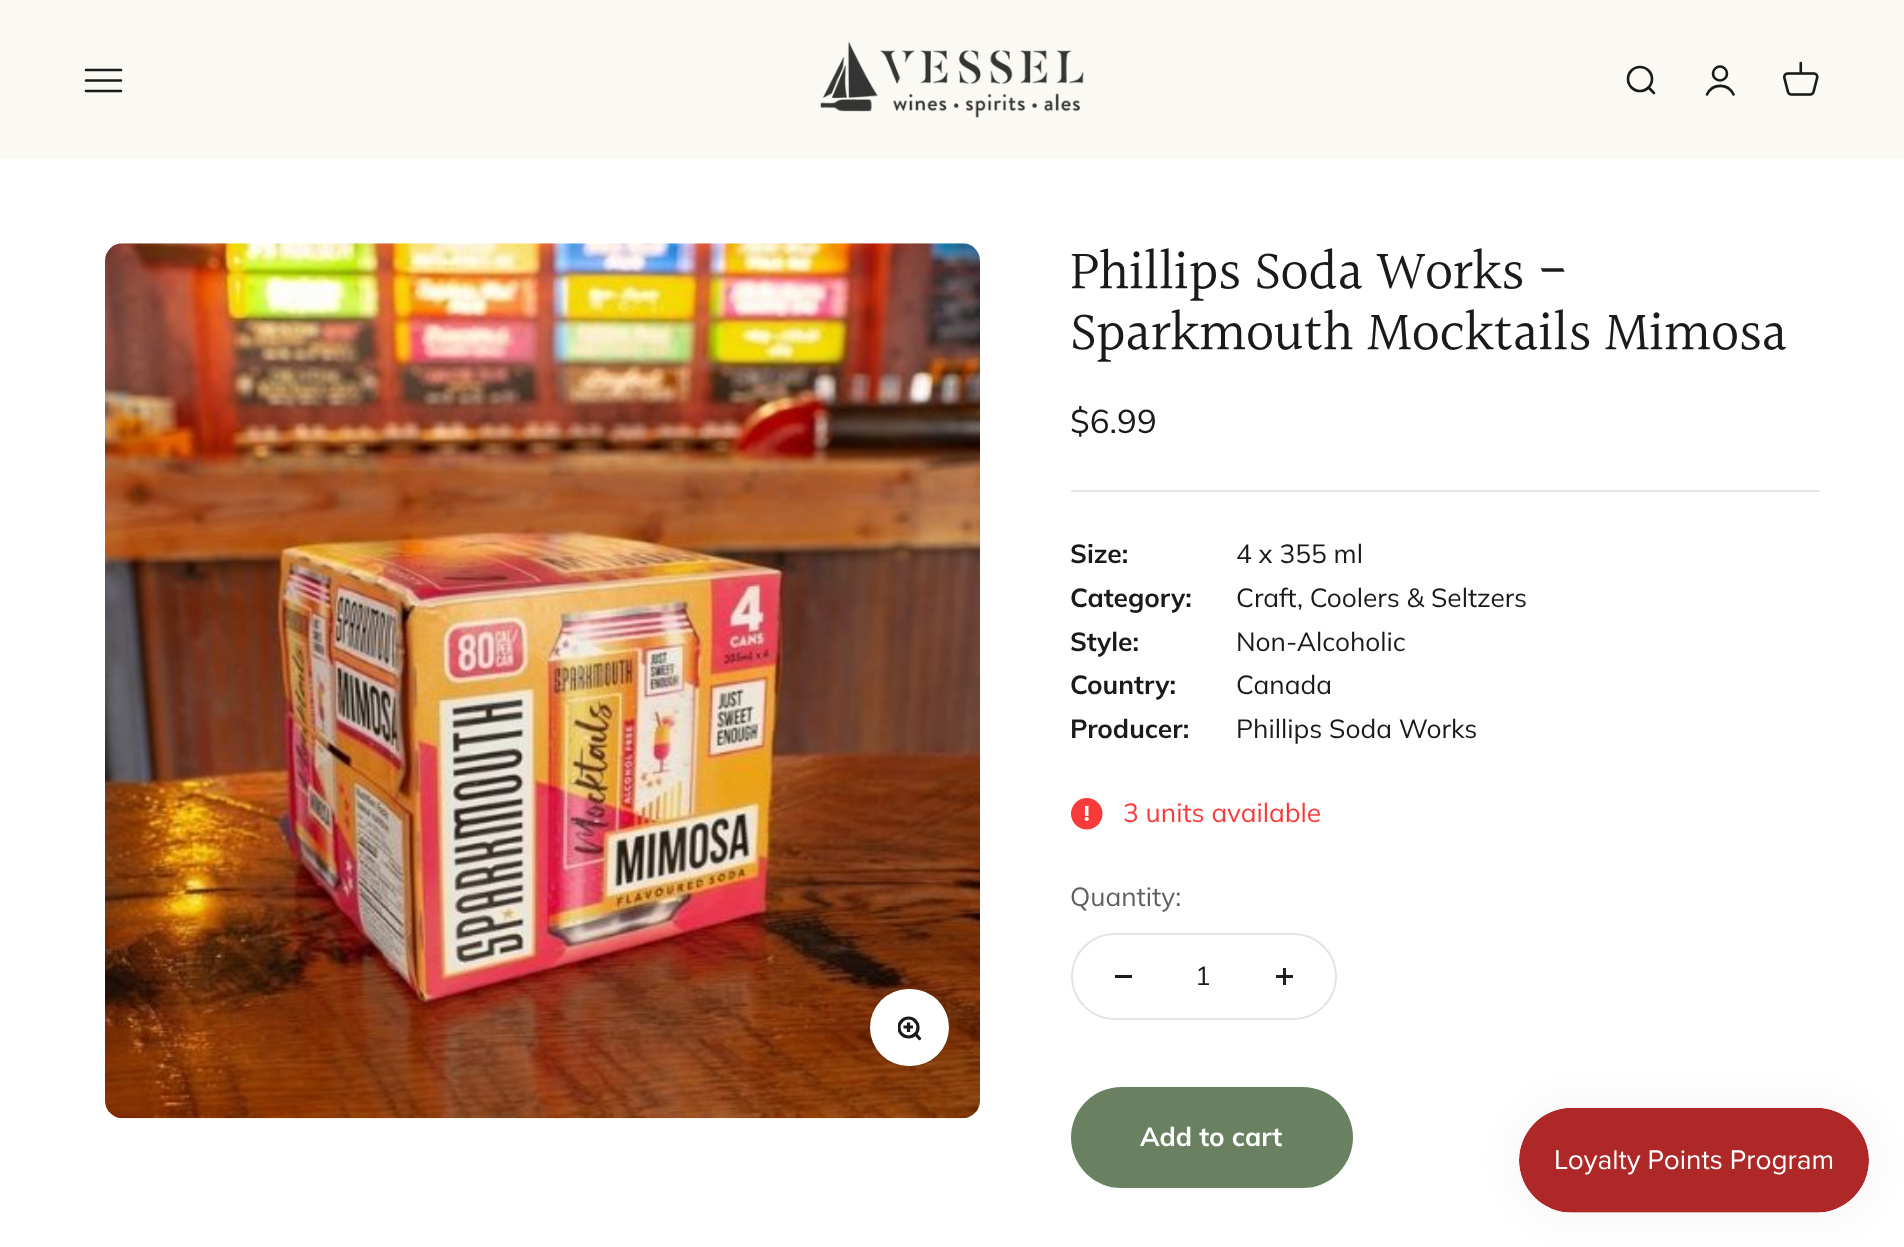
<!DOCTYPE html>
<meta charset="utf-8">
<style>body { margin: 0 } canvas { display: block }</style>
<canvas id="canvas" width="1904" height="1247"></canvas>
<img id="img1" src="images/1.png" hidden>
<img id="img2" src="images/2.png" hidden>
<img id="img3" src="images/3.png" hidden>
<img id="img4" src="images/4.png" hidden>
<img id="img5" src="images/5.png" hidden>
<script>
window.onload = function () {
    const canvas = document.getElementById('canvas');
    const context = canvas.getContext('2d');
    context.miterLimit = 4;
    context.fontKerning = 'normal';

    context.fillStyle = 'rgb(255, 255, 255)';
    context.fillRect(0, 0, 1904, 1247);
    context.fillStyle = 'rgb(33, 33, 33)';
    context.fillRect(1276, 975, 17, 3);
    context.fillStyle = 'rgb(250, 249, 244)';
    context.fillRect(0, 0, 1904, 159);
    context.beginPath();
    context.moveTo(86, 70);
    context.lineTo(121, 70);
    context.moveTo(86, 80.5);
    context.lineTo(121, 80.5);
    context.moveTo(86, 91);
    context.lineTo(121, 91);
    context.strokeStyle = 'rgb(26, 26, 26)';
    context.lineWidth = 2.6;
    context.lineCap = 'round';
    context.stroke();
    context.drawImage(document.getElementById('img1'), 820, 42, 264, 76);
    context.beginPath();
    context.arc(1640, 79, 12, 0, 2 * Math.PI);
    context.stroke();
    context.beginPath();
    context.moveTo(1648.5, 87.5);
    context.lineTo(1654, 93);
    context.lineJoin = 'round';
    context.stroke();
    context.beginPath();
    context.arc(1720, 73.5, 7, 0, 2 * Math.PI);
    context.stroke();
    context.beginPath();
    context.moveTo(1707, 94.5);
    context.bezierCurveTo(1712.5, 83, 1728, 83, 1733.5, 94.5);
    context.lineJoin = 'miter';
    context.stroke();
    context.drawImage(document.getElementById('img2'), 1783, 61, 36, 35);
    context.drawImage(document.getElementById('img3'), 105, 243, 875, 876);
    context.beginPath();
    context.roundRect(868.5, 987.5, 81, 80, 40);
    context.strokeStyle = 'rgba(26, 26, 26, 0.12)';
    context.lineWidth = 1;
    context.stroke();
    context.fillStyle = 'rgb(255, 255, 255)';
    context.beginPath();
    context.roundRect(870, 989, 79, 77, 38.5);
    context.fill();
    context.save();
    context.beginPath();
    context.rect(898, 1015, 23, 25);
    context.clip();
    context.beginPath();
    context.arc(908.5, 1027.5, 9.5, 0, 2 * Math.PI);
    context.strokeStyle = 'rgb(26, 26, 26)';
    context.lineWidth = 3.2;
    context.stroke();
    context.restore();
    context.beginPath();
    context.moveTo(915.5, 1034);
    context.lineTo(919.5, 1038.5);
    context.strokeStyle = 'rgb(26, 26, 26)';
    context.lineWidth = 3.2;
    context.lineJoin = 'round';
    context.stroke();
    context.beginPath();
    context.moveTo(908.5, 1022.5);
    context.lineTo(908.5, 1032);
    context.moveTo(903.5, 1027);
    context.lineTo(913, 1027);
    context.lineCap = 'butt';
    context.lineJoin = 'miter';
    context.stroke();
    context.fillStyle = 'rgb(228, 228, 228)';
    context.fillRect(1071, 490, 749, 2);
    context.drawImage(document.getElementById('img4'), 1071, 798, 32, 32);
    context.beginPath();
    context.roundRect(1072, 934, 264, 85, 42.5);
    context.strokeStyle = 'rgb(228, 228, 228)';
    context.lineWidth = 2;
    context.stroke();
    context.fillStyle = 'rgb(26, 26, 26)';
    context.fillRect(1115, 975, 17, 3);
    context.fillStyle = 'rgb(34, 34, 34)';
    context.fillRect(1283, 968, 3, 17);
    context.fillStyle = 'rgb(26, 26, 26)';
    context.fillRect(1283, 975, 3, 3);
    context.fillStyle = 'rgb(105, 129, 97)';
    context.beginPath();
    context.roundRect(1071, 1087, 282, 101, 50.5);
    context.fill();
    context.fillStyle = 'rgba(0, 0, 0, 0.05)';
    context.filter = 'blur(22px)';
    context.beginPath();
    context.roundRect(1519, 1108, 350, 105, 52.5);
    context.fill();
    context.filter = 'none';
    context.drawImage(document.getElementById('img5'), 1519, 1108, 350, 105);
    context.letterSpacing = '-0.55px';
    context.font = '56px Halant';
    context.fillStyle = 'rgb(26, 26, 26)';
    context.fillText('Phillips Soda Works -', 1070, 291);
    context.fillText('Sparkmouth Mocktails Mimosa', 1070, 352);
    context.letterSpacing = '0px';
    context.font = '33px Muli';
    context.fillText('$6.99', 1070, 433);
    context.font = 'bold 26.25px Muli';
    context.fillText('Size:', 1070, 563);
    context.font = '26.25px Muli';
    context.fillText('4 x 355 ml', 1236, 563);
    context.font = 'bold 26.25px Muli';
    context.fillText('Category:', 1070, 607);
    context.font = '26.25px Muli';
    context.fillText('Craft, Coolers & Seltzers', 1236, 607);
    context.font = 'bold 26.25px Muli';
    context.fillText('Style:', 1070, 651);
    context.font = '26.25px Muli';
    context.fillText('Non-Alcoholic', 1236, 651);
    context.font = 'bold 26.25px Muli';
    context.fillText('Country:', 1070, 694);
    context.font = '26.25px Muli';
    context.fillText('Canada', 1236, 694);
    context.font = 'bold 26.25px Muli';
    context.fillText('Producer:', 1070, 738);
    context.font = '26.25px Muli';
    context.fillText('Phillips Soda Works', 1236, 738);
    context.fillStyle = 'rgb(248, 58, 58)';
    context.fillText('3 units available', 1123, 822);
    context.fillStyle = 'rgb(95, 95, 95)';
    context.fillText('Quantity:', 1070, 906);
    context.fillStyle = 'rgb(26, 26, 26)';
    context.fillText('1', 1195, 985);
    context.font = 'bold 26.25px Muli';
    context.fillStyle = 'rgb(255, 255, 255)';
    context.fillText('Add to cart', 1140, 1146);
};
</script>
